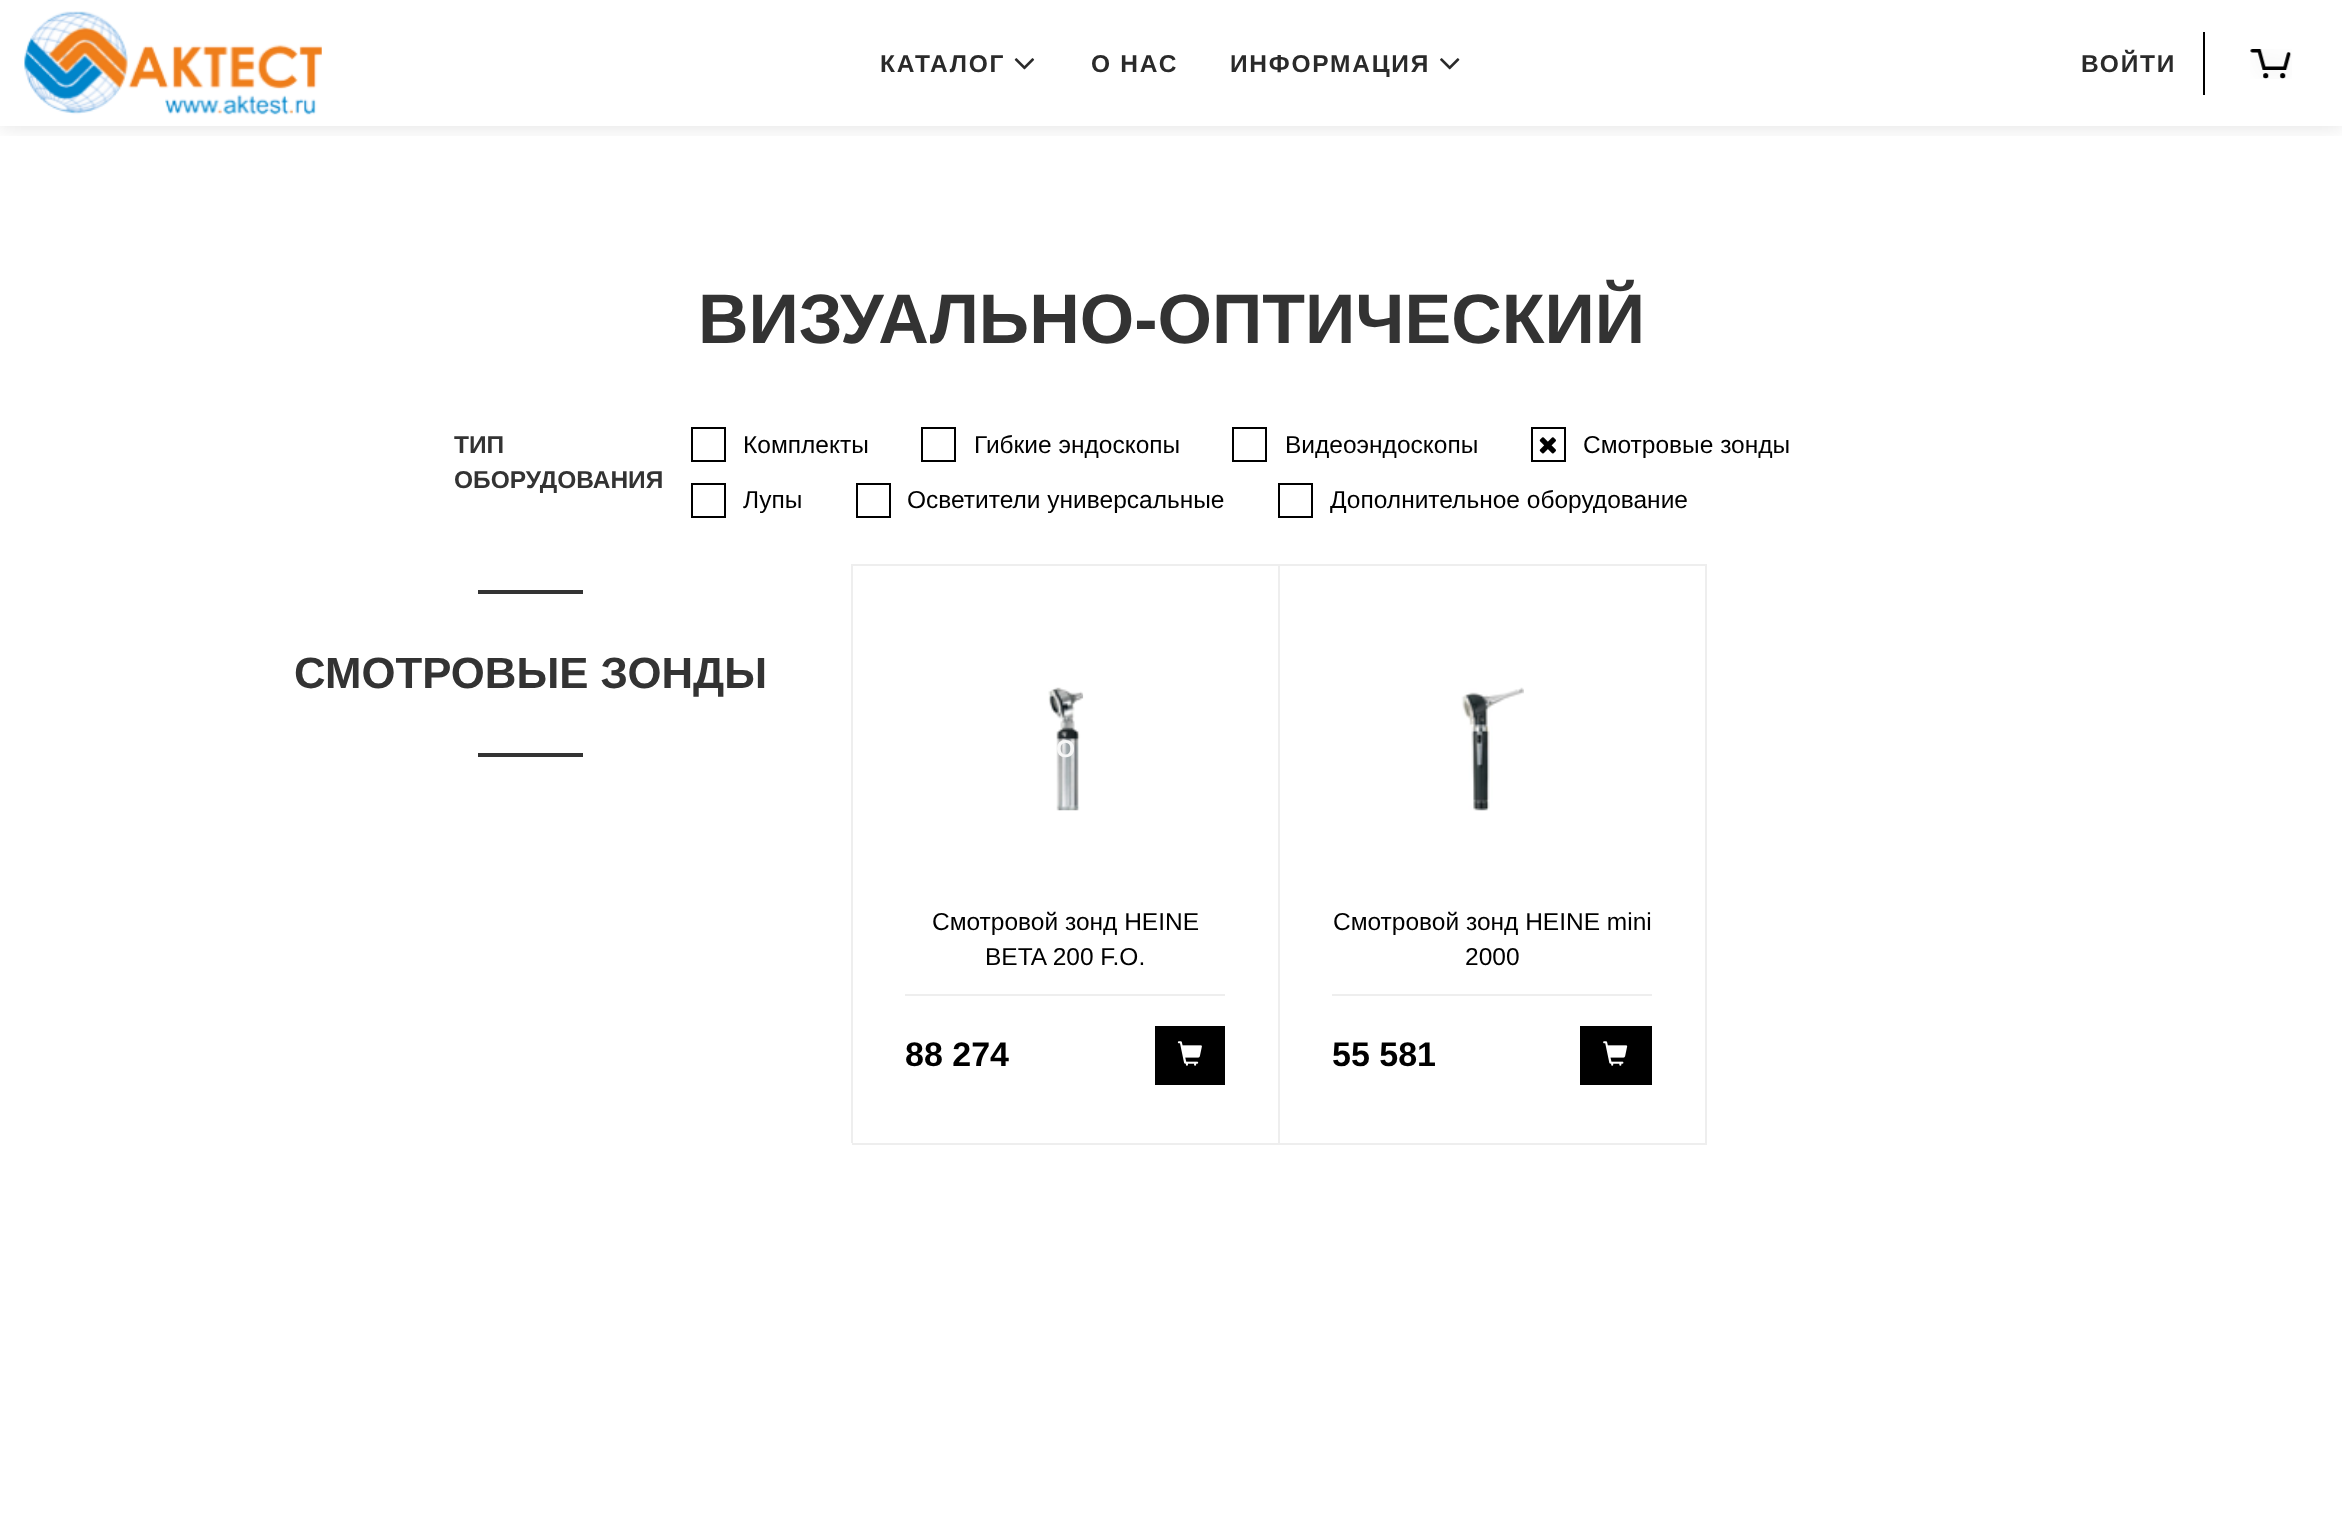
<!DOCTYPE html>
<meta charset="utf-8">
<style>body { margin: 0 } canvas { display: block }</style>
<canvas id="canvas" width="2342" height="1524"></canvas>
<img id="img1" src="images/1.png" hidden>
<img id="img2" src="images/2.png" hidden>
<img id="img3" src="images/3.png" hidden>
<img id="img4" src="images/4.png" hidden>
<img id="img5" src="images/5.png" hidden>
<img id="img6" src="images/6.png" hidden>
<img id="img7" src="images/7.png" hidden>
<img id="img8" src="images/8.png" hidden>
<img id="img9" src="images/9.png" hidden>
<script>
window.onload = function () {
    const canvas = document.getElementById('canvas');
    const context = canvas.getContext('2d');
    context.miterLimit = 4;
    context.fontKerning = 'normal';

    context.fillStyle = 'rgb(255, 255, 255)';
    context.fillRect(0, 0, 2342, 1524);
    context.save();
    context.beginPath();
    context.rect(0, 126, 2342, 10);
    context.clip();
    context.fillStyle = 'rgba(0, 0, 0, 0.12)';
    context.filter = 'blur(10.5px)';
    context.beginPath();
    context.rect(0, 0, 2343, 126);
    context.fill();
    context.filter = 'none';
    context.restore();
    context.drawImage(document.getElementById('img1'), 24, 11, 298, 104);
    context.drawImage(document.getElementById('img2'), 1014, 58, 21, 12);
    context.drawImage(document.getElementById('img3'), 1440, 58, 20, 12);
    context.fillStyle = 'rgb(0, 0, 0)';
    context.fillRect(2203, 32, 2, 63);
    context.drawImage(document.getElementById('img4'), 2250, 49, 42, 30);
    context.strokeStyle = 'rgb(0, 0, 0)';
    context.lineWidth = 2;
    context.strokeRect(692, 428, 33, 33);
    context.strokeRect(922, 428, 33, 33);
    context.strokeRect(1233, 428, 33, 33);
    context.strokeRect(1532, 428, 33, 33);
    context.drawImage(document.getElementById('img5'), 1539, 437, 17, 17);
    context.strokeRect(692, 484, 33, 33);
    context.strokeRect(857, 484, 33, 33);
    context.strokeRect(1279, 484, 33, 33);
    context.fillStyle = 'rgb(51, 51, 51)';
    context.fillRect(478, 590, 105, 4);
    context.fillRect(478, 753, 105, 4);
    context.fillStyle = 'rgb(238, 238, 238)';
    context.fillRect(851, 564, 2, 579);
    context.fillRect(852, 564, 427, 2);
    context.fillRect(1278, 564, 2, 581);
    context.fillRect(852, 1143, 427, 2);
    context.drawImage(document.getElementById('img6'), 1048, 687, 36, 124);
    context.fillRect(905, 994, 320, 2);
    context.fillStyle = 'rgb(0, 0, 0)';
    context.fillRect(1155, 1026, 70, 59);
    context.drawImage(document.getElementById('img7'), 1177, 1041, 25, 25);
    context.fillStyle = 'rgb(238, 238, 238)';
    context.fillRect(1279, 564, 427, 2);
    context.fillRect(1705, 564, 2, 581);
    context.fillRect(1279, 1143, 427, 2);
    context.drawImage(document.getElementById('img8'), 1461, 687, 63, 124);
    context.fillRect(1332, 994, 320, 2);
    context.fillStyle = 'rgb(0, 0, 0)';
    context.fillRect(1580, 1026, 72, 59);
    context.drawImage(document.getElementById('img9'), 1603, 1041, 25, 25);
    context.letterSpacing = '1.75px';
    context.font = 'bold 24.5px Liberation Sans';
    context.fillStyle = 'rgb(42, 42, 42)';
    context.fillText('КАТАЛОГ', 880, 72);
    context.fillText('О НАС', 1091, 72);
    context.fillText('ИНФОРМАЦИЯ', 1230, 72);
    context.fillText('ВОЙТИ', 2081, 72);
    context.letterSpacing = '0px';
    context.font = 'bold 70px Liberation Sans';
    context.fillStyle = 'rgb(51, 51, 51)';
    context.fillText('ВИЗУАЛЬНО-ОПТИЧЕСКИЙ', 698, 343);
    context.font = 'bold 24.5px Liberation Sans';
    context.fillText('ТИП', 454, 453);
    context.fillText('ОБОРУДОВАНИЯ', 454, 488);
    context.font = '24.5px Liberation Sans';
    context.fillStyle = 'rgb(0, 0, 0)';
    context.fillText('Комплекты', 743, 453);
    context.fillText('Гибкие эндоскопы', 974, 453);
    context.fillText('Видеоэндоскопы', 1285, 453);
    context.fillText('Смотровые зонды', 1583, 453);
    context.fillText('Лупы', 743, 508);
    context.fillText('Осветители универсальные', 907, 508);
    context.fillText('Дополнительное оборудование', 1330, 508);
    context.font = 'bold 43.75px Liberation Sans';
    context.fillStyle = 'rgb(51, 51, 51)';
    context.fillText('СМОТРОВЫЕ ЗОНДЫ', 294, 688);
    context.letterSpacing = '1px';
    context.font = 'bold 24.5px Liberation Sans';
    context.fillStyle = 'rgb(247, 247, 247)';
    context.fillText('О', 1056, 757);
    context.letterSpacing = '0px';
    context.font = '24.5px Liberation Sans';
    context.fillStyle = 'rgb(0, 0, 0)';
    context.fillText('Смотровой зонд HEINE', 932, 930);
    context.fillText('BETA 200 F.O.', 985, 965);
    context.font = 'bold 34px Liberation Sans';
    context.fillText('88 274', 905, 1066);
    context.font = '24.5px Liberation Sans';
    context.fillText('Смотровой зонд HEINE mini', 1333, 930);
    context.fillText('2000', 1465, 965);
    context.font = 'bold 34px Liberation Sans';
    context.fillText('55 581', 1332, 1066);
};
</script>
